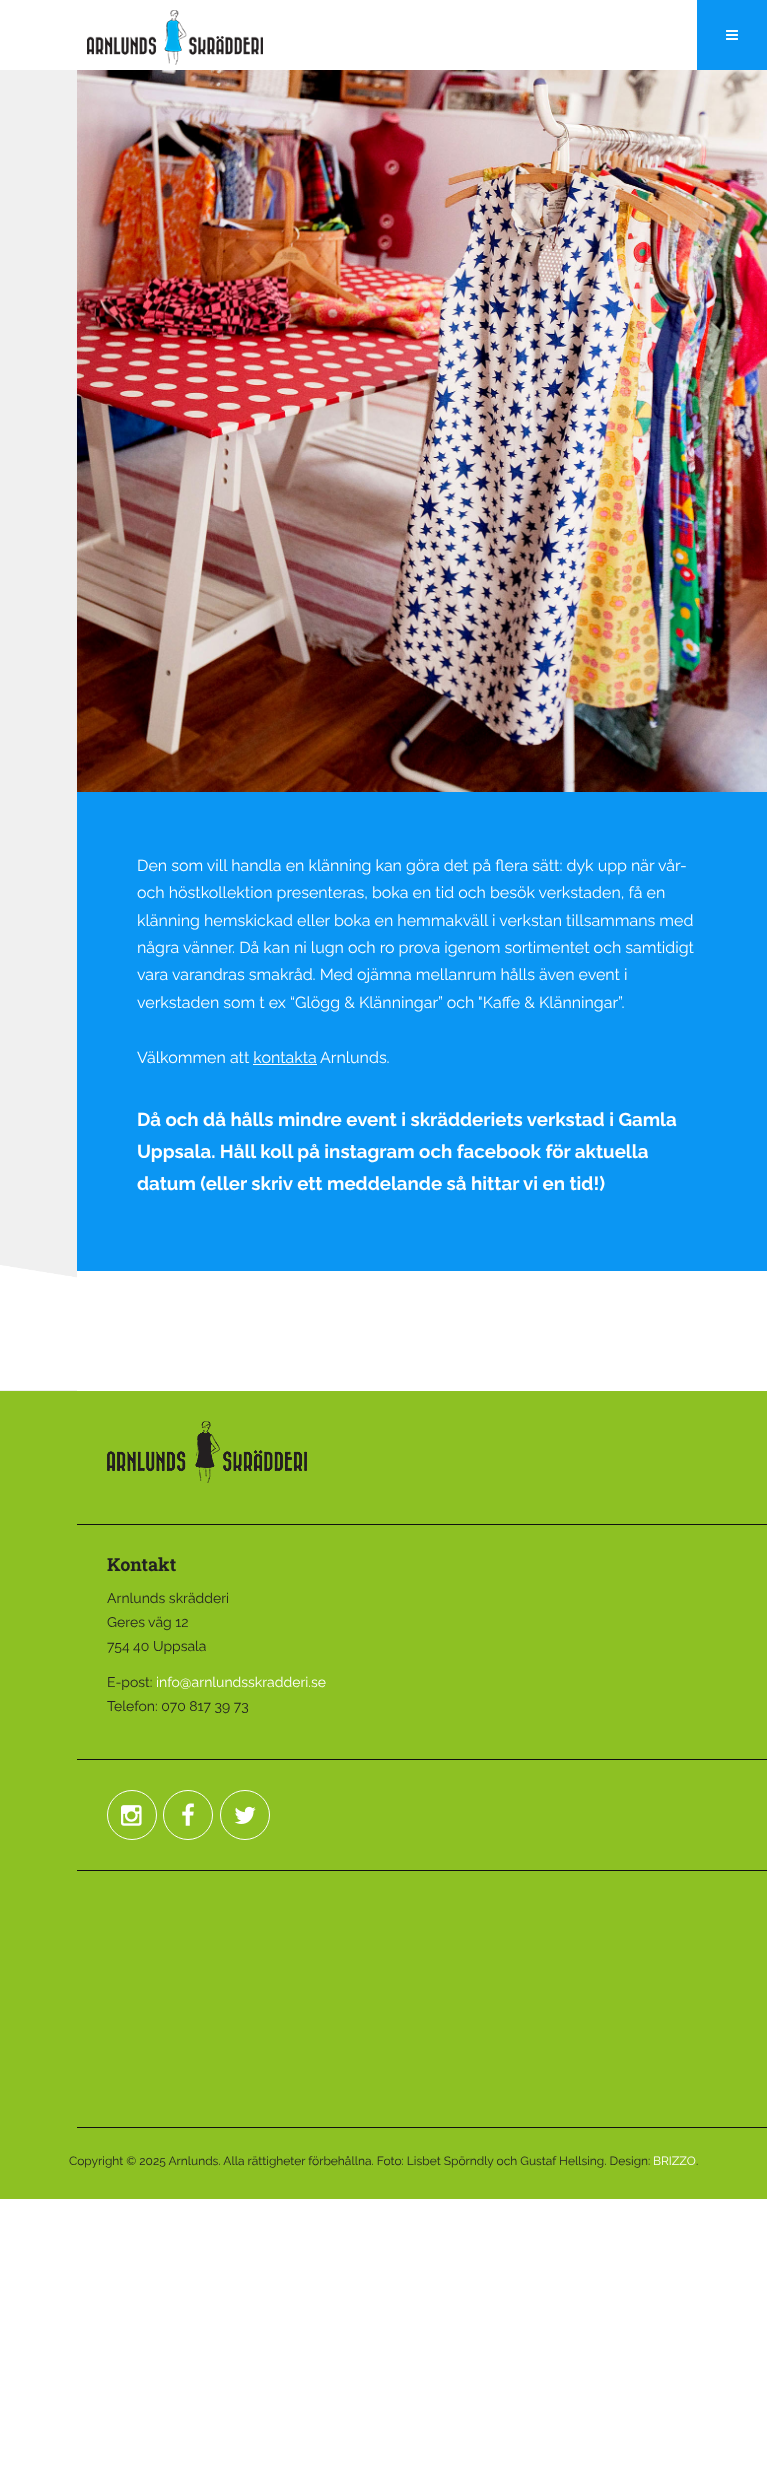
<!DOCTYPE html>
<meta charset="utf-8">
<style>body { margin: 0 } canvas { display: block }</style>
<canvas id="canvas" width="767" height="2477"></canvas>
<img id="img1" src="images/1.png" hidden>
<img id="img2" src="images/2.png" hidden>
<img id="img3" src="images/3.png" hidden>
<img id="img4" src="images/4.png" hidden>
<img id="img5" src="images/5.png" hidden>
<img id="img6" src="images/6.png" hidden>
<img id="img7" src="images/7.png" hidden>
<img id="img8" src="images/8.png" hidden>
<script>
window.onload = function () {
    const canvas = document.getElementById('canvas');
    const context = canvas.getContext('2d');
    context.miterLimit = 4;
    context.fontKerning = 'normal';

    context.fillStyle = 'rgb(255, 255, 255)';
    context.fillRect(0, 0, 767, 2477);
    context.fillStyle = 'rgb(240, 240, 240)';
    context.fillRect(0, 70, 77, 1321);
    context.drawImage(document.getElementById('img1'), 87, 10, 176, 55);
    context.fillStyle = 'rgb(11, 150, 243)';
    context.fillRect(697, 0, 70, 70);
    context.drawImage(document.getElementById('img2'), 726, 30, 12, 10);
    context.drawImage(document.getElementById('img3'), 0, 1265, 77, 125);
    context.fillRect(77, 792, 690, 479);
    context.drawImage(document.getElementById('img4'), 77, 70, 690, 722);
    context.fillStyle = 'rgb(255, 255, 255)';
    context.fillRect(253, 1064, 64, 1);
    context.fillStyle = 'rgb(141, 193, 35)';
    context.fillRect(0, 1391, 767, 808);
    context.fillStyle = 'rgb(17, 17, 17)';
    context.fillRect(77, 1524, 690, 1);
    context.drawImage(document.getElementById('img5'), 107, 1421, 200, 62);
    context.fillRect(77, 1759, 690, 1);
    context.fillRect(77, 1870, 690, 1);
    context.beginPath();
    context.arc(132, 1815, 24.5, 0, 2 * Math.PI);
    context.strokeStyle = 'rgb(255, 255, 255)';
    context.stroke();
    context.drawImage(document.getElementById('img6'), 121, 1805, 21, 21);
    context.beginPath();
    context.arc(188, 1815, 24.5, 0, 2 * Math.PI);
    context.stroke();
    context.drawImage(document.getElementById('img7'), 182, 1803, 12, 23);
    context.beginPath();
    context.arc(245, 1815, 24.5, 0, 2 * Math.PI);
    context.stroke();
    context.drawImage(document.getElementById('img8'), 234, 1806, 22, 18);
    context.fillRect(77, 2127, 690, 1);
    context.font = '16px Raleway';
    context.fillStyle = 'rgb(255, 255, 255)';
    context.fillText('Den som vill handla en klänning kan göra det på flera sätt: dyk upp när vår-', 137, 871);
    context.fillText('och höstkollektion presenteras, boka en tid och besök verkstaden, få en', 137, 898);
    context.fillText('klänning hemskickad eller boka en hemmakväll i verkstan tillsammans med', 137, 926);
    context.fillText('några vänner. Då kan ni lugn och ro prova igenom sortimentet och samtidigt', 137, 953);
    context.fillText('vara varandras smakråd. Med ojämna mellanrum hålls även event i', 137, 980);
    context.fillText('verkstaden som t ex “Glögg & Klänningar” och "Kaffe & Klänningar”.', 137, 1008);
    context.fillText('Välkommen att kontakta', 137, 1063);
    context.fillText('Arnlunds.', 320, 1063);
    context.font = 'bold 18.7px Raleway';
    context.fillText('Då och då hålls mindre event i skrädderiets verkstad i Gamla', 137, 1126);
    context.fillText('Uppsala. Håll koll på instagram och facebook för aktuella', 137, 1158);
    context.fillText('datum (eller skriv ett meddelande så hittar vi en tid!)', 137, 1190);
    context.font = 'bold 18px Roboto Slab';
    context.fillStyle = 'rgb(34, 34, 34)';
    context.fillText('Kontakt', 107, 1571);
    context.font = '14px Raleway';
    context.fillText('Arnlunds skrädderi', 107, 1603);
    context.fillText('Geres väg 12', 107, 1627);
    context.fillText('754 40 Uppsala', 107, 1651);
    context.fillText('E-post:', 107, 1687);
    context.fillStyle = 'rgb(255, 255, 255)';
    context.fillText('info@arnlundsskradderi.se', 156, 1687);
    context.fillStyle = 'rgb(34, 34, 34)';
    context.fillText('Telefon: 070 817 39 73', 107, 1711);
    context.font = '12px Raleway';
    context.fillText('Copyright © 2025 Arnlunds. Alla rättigheter förbehållna. Foto: Lisbet Spörndly och Gustaf Hellsing. Design:', 69, 2165);
    context.fillStyle = 'rgb(255, 255, 255)';
    context.fillText('BRIZZO', 653, 2165);
    context.fillStyle = 'rgb(34, 34, 34)';
    context.fillText('.', 696, 2165);
};
</script>
